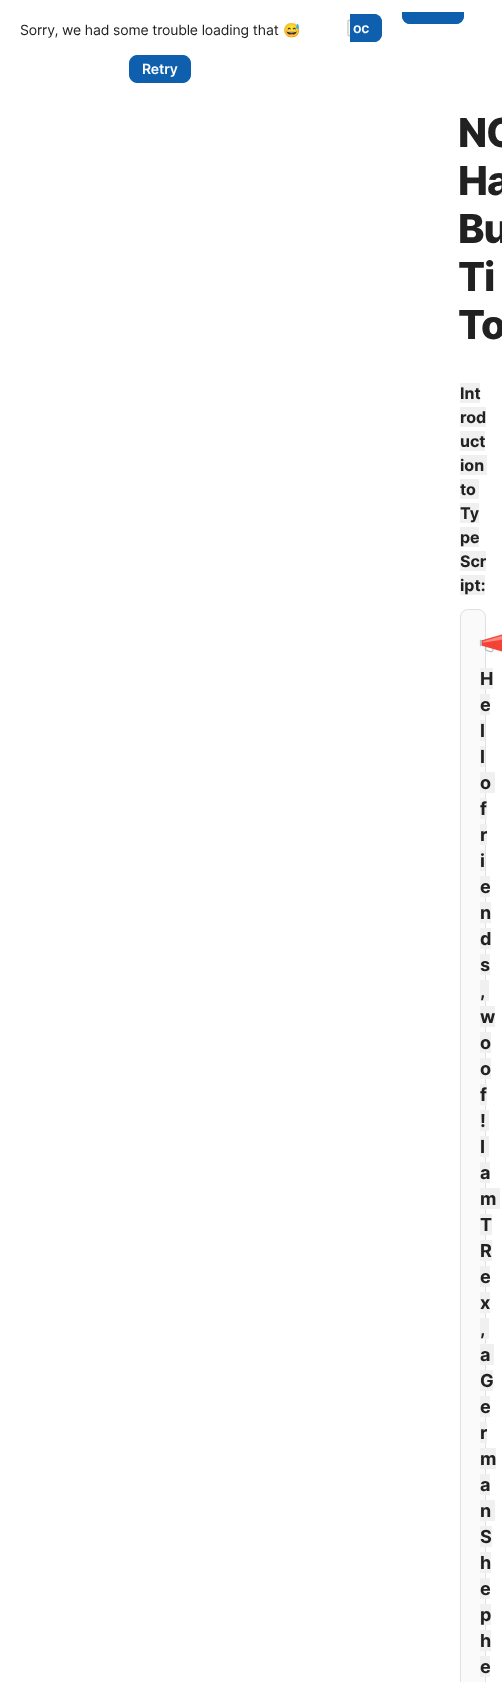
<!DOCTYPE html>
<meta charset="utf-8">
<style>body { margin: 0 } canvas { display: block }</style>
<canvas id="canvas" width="502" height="1682"></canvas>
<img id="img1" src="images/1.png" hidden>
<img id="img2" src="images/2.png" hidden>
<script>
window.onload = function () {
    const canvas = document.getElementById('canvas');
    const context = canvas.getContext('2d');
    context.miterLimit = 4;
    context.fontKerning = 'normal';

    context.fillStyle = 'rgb(255, 255, 255)';
    context.fillRect(0, 0, 502, 1682);
    context.fillStyle = 'rgb(15, 95, 175)';
    context.beginPath();
    context.roundRect(129.5, 55.5, 61, 27, 7.5);
    context.fill();
    context.strokeStyle = 'rgb(15, 95, 175)';
    context.stroke();
    context.drawImage(document.getElementById('img1'), 347, 19, 3, 18);
    context.beginPath();
    context.roundRect(402, 12, 62, 12, [0, 0, 8, 8]);
    context.fill();
    context.save();
    context.beginPath();
    context.rect(350, 12, 134, 32);
    context.clip();
    context.beginPath();
    context.roundRect(402.5, -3.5, 61, 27, 7.5);
    context.stroke();
    context.restore();
    context.beginPath();
    context.roundRect(350, 14, 32, 28, [0, 8, 8, 0]);
    context.fill();
    context.fillStyle = 'rgb(240, 240, 240)';
    context.fillRect(460, 383, 20, 20);
    context.fillRect(460, 407, 26, 20);
    context.fillRect(460, 431, 25, 20);
    context.fillRect(460, 455, 27, 20);
    context.fillRect(460, 479, 19, 20);
    context.fillRect(460, 503, 19, 20);
    context.fillRect(460, 527, 19, 20);
    context.fillRect(460, 551, 26, 20);
    context.fillRect(460, 575, 25, 20);
    context.fillStyle = 'rgb(250, 250, 250)';
    context.beginPath();
    context.roundRect(460, 609, 26, 1073, [8, 8, 0, 0]);
    context.fill();
    context.beginPath();
    context.roundRect(460.5, 609.5, 25, 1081, 7.5);
    context.strokeStyle = 'rgb(225, 225, 225)';
    context.stroke();
    context.drawImage(document.getElementById('img2'), 479, 634, 23, 19);
    context.fillStyle = 'rgb(240, 240, 240)';
    context.fillRect(480, 668, 13, 21);
    context.fillRect(480, 694, 10, 21);
    context.fillRect(480, 720, 5, 21);
    context.fillRect(480, 746, 5, 21);
    context.fillRect(480, 772, 15, 21);
    context.fillRect(480, 798, 7, 21);
    context.fillRect(480, 824, 7, 21);
    context.fillRect(480, 850, 5, 21);
    context.fillRect(480, 876, 10, 21);
    context.fillRect(480, 902, 11, 21);
    context.fillRect(480, 928, 11, 21);
    context.fillRect(480, 954, 10, 21);
    context.fillRect(480, 980, 9, 21);
    context.fillRect(480, 1006, 15, 21);
    context.fillRect(480, 1032, 11, 21);
    context.fillRect(480, 1058, 11, 21);
    context.fillRect(480, 1084, 7, 21);
    context.fillRect(480, 1110, 9, 21);
    context.fillRect(480, 1136, 9, 21);
    context.fillRect(480, 1162, 10, 21);
    context.fillRect(480, 1188, 20, 21);
    context.fillRect(480, 1214, 12, 21);
    context.fillRect(480, 1240, 12, 21);
    context.fillRect(480, 1266, 10, 21);
    context.fillRect(480, 1292, 10, 21);
    context.fillRect(480, 1318, 9, 21);
    context.fillRect(480, 1344, 14, 21);
    context.fillRect(480, 1370, 13, 21);
    context.fillRect(480, 1396, 10, 21);
    context.fillRect(480, 1422, 7, 21);
    context.fillRect(480, 1448, 16, 21);
    context.fillRect(480, 1474, 10, 21);
    context.fillRect(480, 1500, 15, 21);
    context.fillRect(480, 1526, 12, 21);
    context.fillRect(480, 1552, 11, 21);
    context.fillRect(480, 1578, 10, 21);
    context.fillRect(480, 1604, 11, 21);
    context.fillRect(480, 1630, 11, 21);
    context.fillRect(480, 1656, 10, 21);
    context.letterSpacing = '-0.15px';
    context.font = '14px Inter';
    context.fillStyle = 'rgb(33, 33, 33)';
    context.fillText('Sorry, we had some trouble loading that', 20, 35);
    context.font = '14px Noto Color Emoji';
    context.fillText('😅', 283, 35);
    context.font = '600 14px Inter';
    context.fillStyle = 'rgb(255, 255, 255)';
    context.fillText('Retry', 142, 74);
    context.save();
    context.beginPath();
    context.rect(350, 12, 134, 32);
    context.clip();
    context.beginPath();
    context.roundRect(293.5, 14.5, 88, 27, 7.5);
    context.strokeStyle = 'rgb(15, 95, 175)';
    context.stroke();
    context.restore();
    context.fillText('oc', 353, 33);
    context.letterSpacing = '-1px';
    context.font = '800 40px Inter';
    context.fillStyle = 'rgb(33, 33, 33)';
    context.fillText('NO', 458, 147);
    context.fillText('Ha', 458, 195);
    context.fillText('Bu', 458, 243);
    context.fillText('Ti', 458, 291);
    context.fillText('To', 458, 339);
    context.letterSpacing = '0px';
    context.font = 'bold 16px Inter';
    context.fillText('Int', 460, 399);
    context.fillText('rod', 460, 423);
    context.fillText('uct', 460, 447);
    context.fillText('ion', 460, 471);
    context.fillText('to', 460, 495);
    context.fillText('Ty', 460, 519);
    context.fillText('pe', 460, 543);
    context.fillText('Scr', 460, 567);
    context.fillText('ipt:', 460, 591);
    context.font = 'bold 18px Inter';
    context.fillText('H', 480, 685);
    context.fillText('e', 480, 711);
    context.fillText('l', 480, 737);
    context.fillText('l', 480, 763);
    context.fillText('o', 480, 789);
    context.fillText('f', 480, 815);
    context.fillText('r', 480, 841);
    context.fillText('i', 480, 867);
    context.fillText('e', 480, 893);
    context.fillText('n', 480, 919);
    context.fillText('d', 480, 945);
    context.fillText('s', 480, 971);
    context.fillText(',', 480, 997);
    context.fillText('w', 480, 1023);
    context.fillText('o', 480, 1049);
    context.fillText('o', 480, 1075);
    context.fillText('f', 480, 1101);
    context.fillText('!', 480, 1127);
    context.fillText('I', 480, 1153);
    context.fillText('a', 480, 1179);
    context.fillText('m', 480, 1205);
    context.fillText('T', 480, 1231);
    context.fillText('R', 480, 1257);
    context.fillText('e', 480, 1283);
    context.fillText('x', 480, 1309);
    context.fillText(',', 480, 1335);
    context.fillText('a', 480, 1361);
    context.fillText('G', 480, 1387);
    context.fillText('e', 480, 1413);
    context.fillText('r', 480, 1439);
    context.fillText('m', 480, 1465);
    context.fillText('a', 480, 1491);
    context.fillText('n', 480, 1517);
    context.fillText('S', 480, 1543);
    context.fillText('h', 480, 1569);
    context.fillText('e', 480, 1595);
    context.fillText('p', 480, 1621);
    context.fillText('h', 480, 1647);
    context.fillText('e', 480, 1673);
};
</script>
